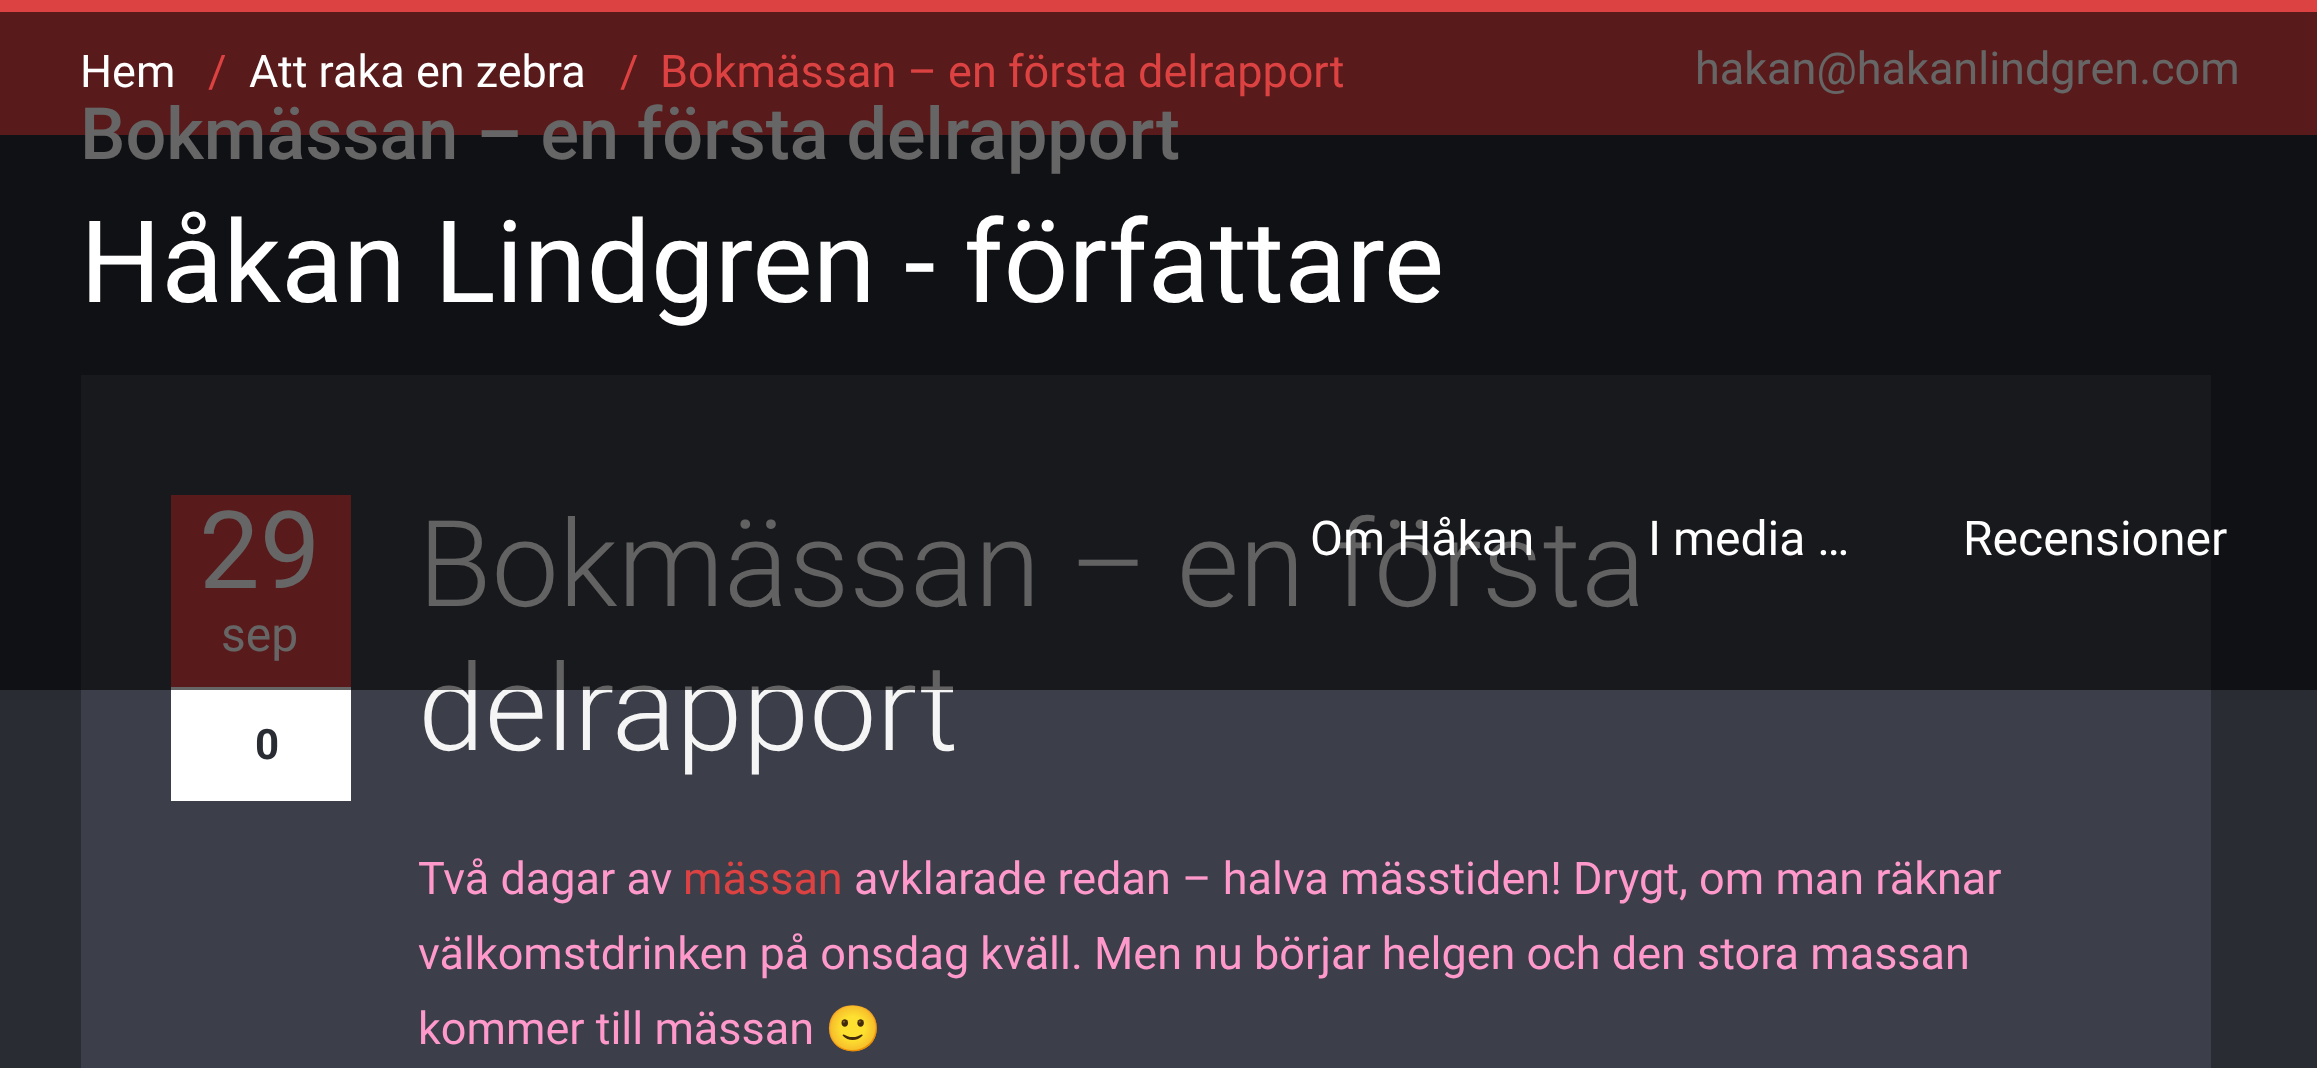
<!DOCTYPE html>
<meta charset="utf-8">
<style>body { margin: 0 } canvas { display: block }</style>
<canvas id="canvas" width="2317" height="1068"></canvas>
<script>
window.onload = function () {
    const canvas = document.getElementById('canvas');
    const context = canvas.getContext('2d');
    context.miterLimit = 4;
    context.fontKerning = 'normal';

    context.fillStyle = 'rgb(42, 44, 51)';
    context.fillRect(0, 0, 2317, 1068);
    context.fillStyle = 'rgb(221, 66, 66)';
    context.fillRect(0, 0, 2317, 135);
    context.fillStyle = 'rgb(60, 63, 73)';
    context.fillRect(81, 375, 2130, 693);
    context.fillStyle = 'rgb(255, 255, 255)';
    context.fillRect(171, 687, 180, 114);
    context.fillStyle = 'rgb(221, 66, 66)';
    context.fillRect(171, 495, 180, 192);
    context.font = '500 72px Roboto';
    context.fillStyle = 'rgb(255, 255, 255)';
    context.fillText('Bokmässan – en första delrapport', 80, 159);
    context.font = '45px Roboto';
    context.fillText('hakan@hakanlindgren.com', 1695, 84);
    context.fillStyle = 'rgba(0, 0, 0, 0.6)';
    context.fillRect(0, 12, 2317, 123);
    context.fillStyle = 'rgb(221, 66, 66)';
    context.fillText('Bokmässan – en första delrapport', 660, 87);
    context.fillText('/', 620, 87);
    context.fillStyle = 'rgb(255, 255, 255)';
    context.fillText('Att raka en zebra', 249, 87);
    context.fillStyle = 'rgb(221, 66, 66)';
    context.fillText('/', 208, 87);
    context.fillStyle = 'rgb(255, 255, 255)';
    context.fillText('Hem', 80, 87);
    context.font = '108px Roboto';
    context.fillText('29', 199, 588);
    context.font = '48px Roboto';
    context.fillText('sep', 221, 651);
    context.font = 'bold 42px Roboto';
    context.fillStyle = 'rgb(42, 44, 51)';
    context.fillText('0', 255, 759);
    context.font = '300 120px Roboto';
    context.fillStyle = 'rgb(245, 245, 245)';
    context.fillText('Bokmässan – en första', 418, 606);
    context.fillText('delrapport', 418, 750);
    context.fillStyle = 'rgba(0, 0, 0, 0.6)';
    context.fillRect(0, 135, 2317, 555);
    context.font = '48px Roboto';
    context.fillStyle = 'rgb(255, 255, 255)';
    context.fillText('Recensioner', 1963, 555);
    context.fillText('I media …', 1648, 555);
    context.fillText('Om Håkan', 1310, 555);
    context.font = '114px Roboto';
    context.fillText('Håkan Lindgren - författare', 80, 302);
    context.font = '45px Roboto';
    context.fillStyle = 'rgb(255, 153, 204)';
    context.fillText('Två dagar av', 418, 894);
    context.fillStyle = 'rgb(221, 66, 66)';
    context.fillText('mässan', 683, 894);
    context.fillStyle = 'rgb(255, 153, 204)';
    context.fillText('avklarade redan – halva mässtiden! Drygt, om man räknar', 854, 894);
    context.fillText('välkomstdrinken på onsdag kväll. Men nu börjar helgen och den stora massan', 418, 969);
    context.fillText('kommer till mässan', 418, 1044);
    context.font = '45px Noto Color Emoji';
    context.fillText('🙂', 825, 1044);
};
</script>
